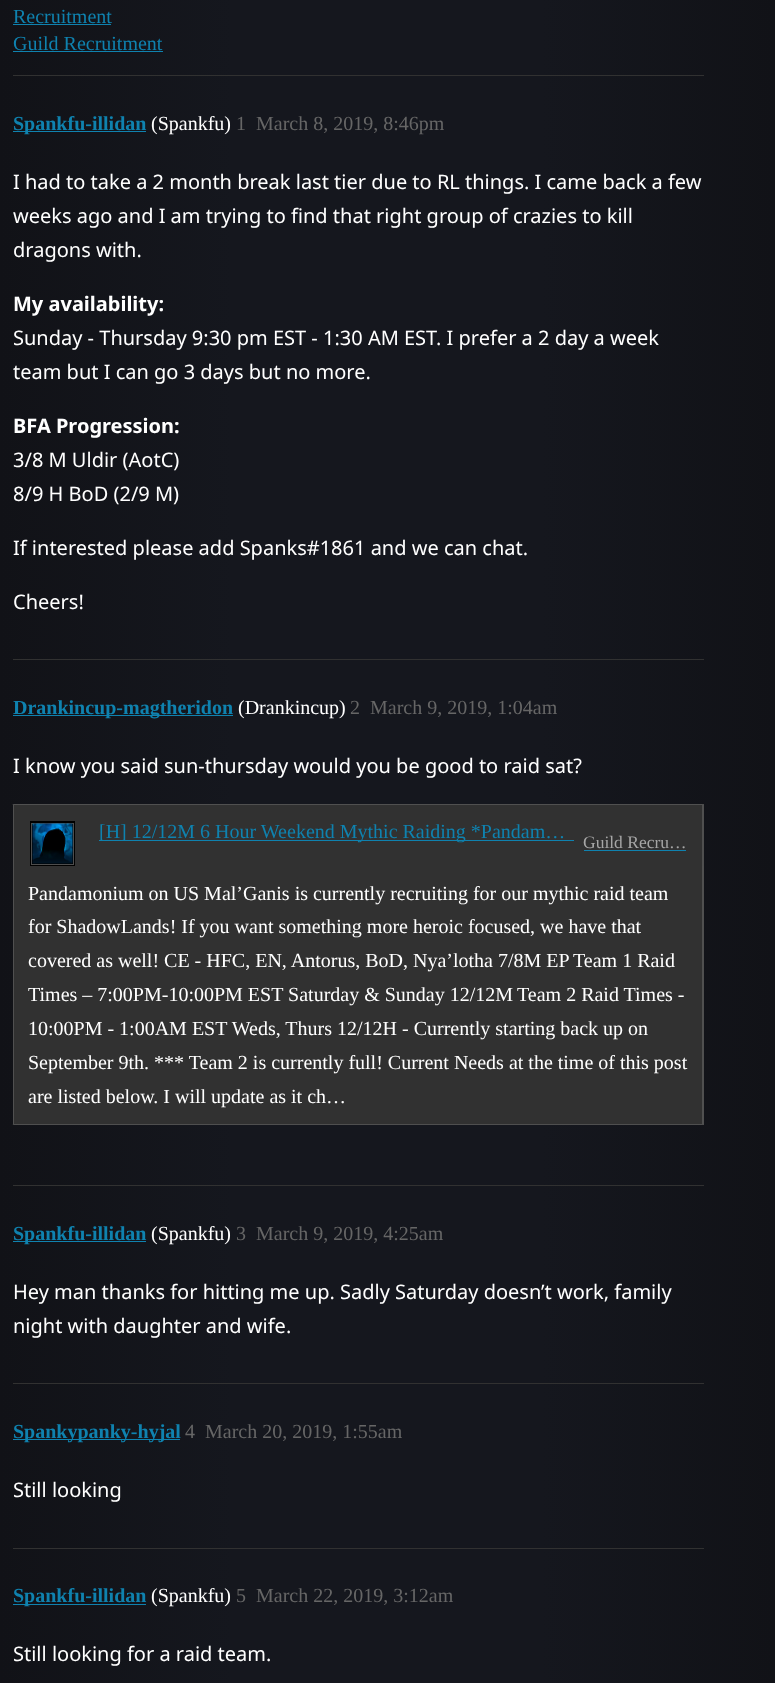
<!DOCTYPE html>
<meta charset="utf-8">
<style>body { margin: 0 } canvas { display: block }</style>
<canvas id="canvas" width="775" height="1683"></canvas>
<img id="img1" src="images/1.png" hidden>
<script>
window.onload = function () {
    const canvas = document.getElementById('canvas');
    const context = canvas.getContext('2d');
    context.miterLimit = 4;
    context.fontKerning = 'normal';
    let gradient;

    context.fillStyle = 'rgb(255, 255, 255)';
    context.fillRect(0, 0, 775, 1683);
    gradient = context.createLinearGradient(0, 1113, 775, 1113);
    gradient.addColorStop(0, 'rgb(17, 18, 23)');
    gradient.addColorStop(0.3, 'rgb(21, 23, 30)');
    gradient.addColorStop(0.7, 'rgb(21, 23, 30)');
    gradient.addColorStop(1, 'rgb(17, 18, 23)');
    context.fillStyle = gradient;
    context.fillRect(0, 0, 775, 1683);
    context.fillStyle = 'rgb(15, 130, 175)';
    context.fillRect(13, 24, 98, 1);
    context.fillRect(13, 51, 150, 1);
    context.fillStyle = 'rgb(49, 49, 49)';
    context.fillRect(13, 75, 691, 1);
    context.fillStyle = 'rgb(15, 130, 175)';
    context.fillRect(13, 131, 133, 1);
    context.fillStyle = 'rgb(49, 49, 49)';
    context.fillRect(13, 659, 691, 1);
    context.fillStyle = 'rgb(15, 130, 175)';
    context.fillRect(13, 715, 220, 1);
    context.fillStyle = 'rgb(49, 49, 49)';
    context.fillRect(13, 804, 691, 321);
    context.fillStyle = 'rgb(80, 80, 80)';
    context.beginPath();
    context.moveTo(12, 804);
    context.lineTo(704, 804);
    context.lineTo(702, 805);
    context.lineTo(14, 805);
    context.closePath();
    context.fill();
    context.fillStyle = 'rgba(255, 255, 255, 0.15)';
    context.beginPath();
    context.moveTo(704, 804);
    context.lineTo(704, 866);
    context.lineTo(702, 866);
    context.lineTo(702, 805);
    context.closePath();
    context.fill();
    context.save();
    context.beginPath();
    context.rect(13, 750, 691, 395);
    context.clip();
    context.fillStyle = 'rgb(80, 80, 80)';
    context.beginPath();
    context.moveTo(12, 866);
    context.lineTo(12, 804);
    context.lineTo(14, 805);
    context.lineTo(14, 866);
    context.closePath();
    context.fill();
    context.restore();
    context.strokeStyle = 'rgb(0, 0, 0)';
    context.lineWidth = 3;
    context.strokeRect(31.5, 822.5, 42, 42);
    context.strokeStyle = 'rgb(77, 77, 77)';
    context.lineWidth = 1;
    context.strokeRect(31.5, 823.5, 42, 41);
    context.drawImage(document.getElementById('img1'), 32, 823, 41, 41);
    context.fillStyle = 'rgb(15, 130, 175)';
    context.fillRect(99, 840, 475, 1);
    context.fillRect(584, 850, 102, 1);
    context.fillStyle = 'rgb(80, 80, 80)';
    context.beginPath();
    context.moveTo(704, 866);
    context.lineTo(704, 1125);
    context.lineTo(702, 1124);
    context.lineTo(702, 866);
    context.closePath();
    context.fill();
    context.fillStyle = 'rgba(255, 255, 255, 0.15)';
    context.beginPath();
    context.moveTo(704, 1125);
    context.lineTo(12, 1125);
    context.lineTo(14, 1124);
    context.lineTo(702, 1124);
    context.closePath();
    context.fill();
    context.save();
    context.beginPath();
    context.rect(13, 750, 691, 395);
    context.clip();
    context.fillStyle = 'rgb(80, 80, 80)';
    context.beginPath();
    context.moveTo(12, 1125);
    context.lineTo(12, 866);
    context.lineTo(14, 866);
    context.lineTo(14, 1124);
    context.closePath();
    context.fill();
    context.restore();
    context.fillStyle = 'rgb(49, 49, 49)';
    context.fillRect(13, 1185, 691, 1);
    context.fillStyle = 'rgb(15, 130, 175)';
    context.fillRect(13, 1241, 133, 1);
    context.fillStyle = 'rgb(49, 49, 49)';
    context.fillRect(13, 1383, 691, 1);
    context.fillStyle = 'rgb(15, 130, 175)';
    context.fillRect(13, 1439, 167, 1);
    context.fillStyle = 'rgb(49, 49, 49)';
    context.fillRect(13, 1548, 691, 1);
    context.fillStyle = 'rgb(15, 130, 175)';
    context.fillRect(13, 1604, 133, 1);
    context.font = '20px Liberation Serif';
    context.fillText('Recruitment', 13, 23);
    context.fillText('Guild Recruitment', 13, 50);
    context.font = 'bold 20px Liberation Serif';
    context.fillText('Spankfu-illidan', 13, 130);
    context.font = '20px Liberation Serif';
    context.fillStyle = 'rgb(255, 255, 255)';
    context.fillText('(Spankfu)', 151, 130);
    context.fillStyle = 'rgb(102, 102, 102)';
    context.fillText('1', 236, 130);
    context.fillText('March 8, 2019, 8:46pm', 256, 130);
    context.font = '20px Noto Sans';
    context.fillStyle = 'rgb(255, 255, 255)';
    context.fillText('I had to take a 2 month break last tier due to RL things. I came back a few', 13, 189);
    context.fillText('weeks ago and I am trying to find that right group of crazies to kill', 13, 223);
    context.fillText('dragons with.', 13, 257);
    context.font = 'bold 20px Noto Sans';
    context.fillText('My availability:', 13, 311);
    context.font = '20px Noto Sans';
    context.fillText('Sunday - Thursday 9:30 pm EST - 1:30 AM EST. I prefer a 2 day a week', 13, 345);
    context.fillText('team but I can go 3 days but no more.', 13, 379);
    context.font = 'bold 20px Noto Sans';
    context.fillText('BFA Progression:', 13, 433);
    context.font = '20px Noto Sans';
    context.fillText('3/8 M Uldir (AotC)', 13, 467);
    context.fillText('8/9 H BoD (2/9 M)', 13, 501);
    context.fillText('If interested please add Spanks#1861 and we can chat.', 13, 555);
    context.fillText('Cheers!', 13, 609);
    context.font = 'bold 20px Liberation Serif';
    context.fillStyle = 'rgb(15, 130, 175)';
    context.fillText('Drankincup-magtheridon', 13, 714);
    context.font = '20px Liberation Serif';
    context.fillStyle = 'rgb(255, 255, 255)';
    context.fillText('(Drankincup)', 238, 714);
    context.fillStyle = 'rgb(102, 102, 102)';
    context.fillText('2', 350, 714);
    context.fillText('March 9, 2019, 1:04am', 370, 714);
    context.font = '20px Noto Sans';
    context.fillStyle = 'rgb(255, 255, 255)';
    context.fillText('I know you said sun-thursday would you be good to raid sat?', 13, 773);
    context.font = '20px Liberation Serif';
    context.fillStyle = 'rgb(15, 130, 175)';
    context.fillText('[H] 12/12M 6 Hour Weekend Mythic Raiding *Pandam…', 99, 838);
    context.font = '17.5px Liberation Serif';
    context.fillStyle = 'rgb(166, 166, 166)';
    context.fillText('Guild Recru…', 583, 848);
    context.font = '20px Liberation Serif';
    context.fillStyle = 'rgb(255, 255, 255)';
    context.fillText('Pandamonium on US Mal’Ganis is currently recruiting for our mythic raid team', 28, 900);
    context.fillText('for ShadowLands! If you want something more heroic focused, we have that', 28, 933);
    context.fillText('covered as well! CE - HFC, EN, Antorus, BoD, Nya’lotha 7/8M EP', 28, 967);
    context.fillText('Team 1 Raid', 573, 967);
    context.fillText('Times – 7:00PM-10:00PM EST Saturday & Sunday 12/12M', 28, 1001);
    context.fillText('Team 2 Raid Times -', 517, 1001);
    context.fillText('10:00PM - 1:00AM EST Weds, Thurs 12/12H - Currently starting back up on', 28, 1035);
    context.fillText('September 9th. *** Team 2 is currently full! Current Needs at the time of this post', 28, 1069);
    context.fillText('are listed below. I will update as it ch…', 28, 1103);
    context.font = 'bold 20px Liberation Serif';
    context.fillStyle = 'rgb(15, 130, 175)';
    context.fillText('Spankfu-illidan', 13, 1240);
    context.font = '20px Liberation Serif';
    context.fillStyle = 'rgb(255, 255, 255)';
    context.fillText('(Spankfu)', 151, 1240);
    context.fillStyle = 'rgb(102, 102, 102)';
    context.fillText('3', 236, 1240);
    context.fillText('March 9, 2019, 4:25am', 256, 1240);
    context.font = '20px Noto Sans';
    context.fillStyle = 'rgb(255, 255, 255)';
    context.fillText('Hey man thanks for hitting me up. Sadly Saturday doesn’t work, family', 13, 1299);
    context.fillText('night with daughter and wife.', 13, 1333);
    context.font = 'bold 20px Liberation Serif';
    context.fillStyle = 'rgb(15, 130, 175)';
    context.fillText('Spankypanky-hyjal', 13, 1438);
    context.font = '20px Liberation Serif';
    context.fillStyle = 'rgb(102, 102, 102)';
    context.fillText('4', 185, 1438);
    context.fillText('March 20, 2019, 1:55am', 205, 1438);
    context.font = '20px Noto Sans';
    context.fillStyle = 'rgb(255, 255, 255)';
    context.fillText('Still looking', 13, 1497);
    context.font = 'bold 20px Liberation Serif';
    context.fillStyle = 'rgb(15, 130, 175)';
    context.fillText('Spankfu-illidan', 13, 1602);
    context.font = '20px Liberation Serif';
    context.fillStyle = 'rgb(255, 255, 255)';
    context.fillText('(Spankfu)', 151, 1602);
    context.fillStyle = 'rgb(102, 102, 102)';
    context.fillText('5', 236, 1602);
    context.fillText('March 22, 2019, 3:12am', 256, 1602);
    context.font = '20px Noto Sans';
    context.fillStyle = 'rgb(255, 255, 255)';
    context.fillText('Still looking for a raid team.', 13, 1661);
};
</script>
